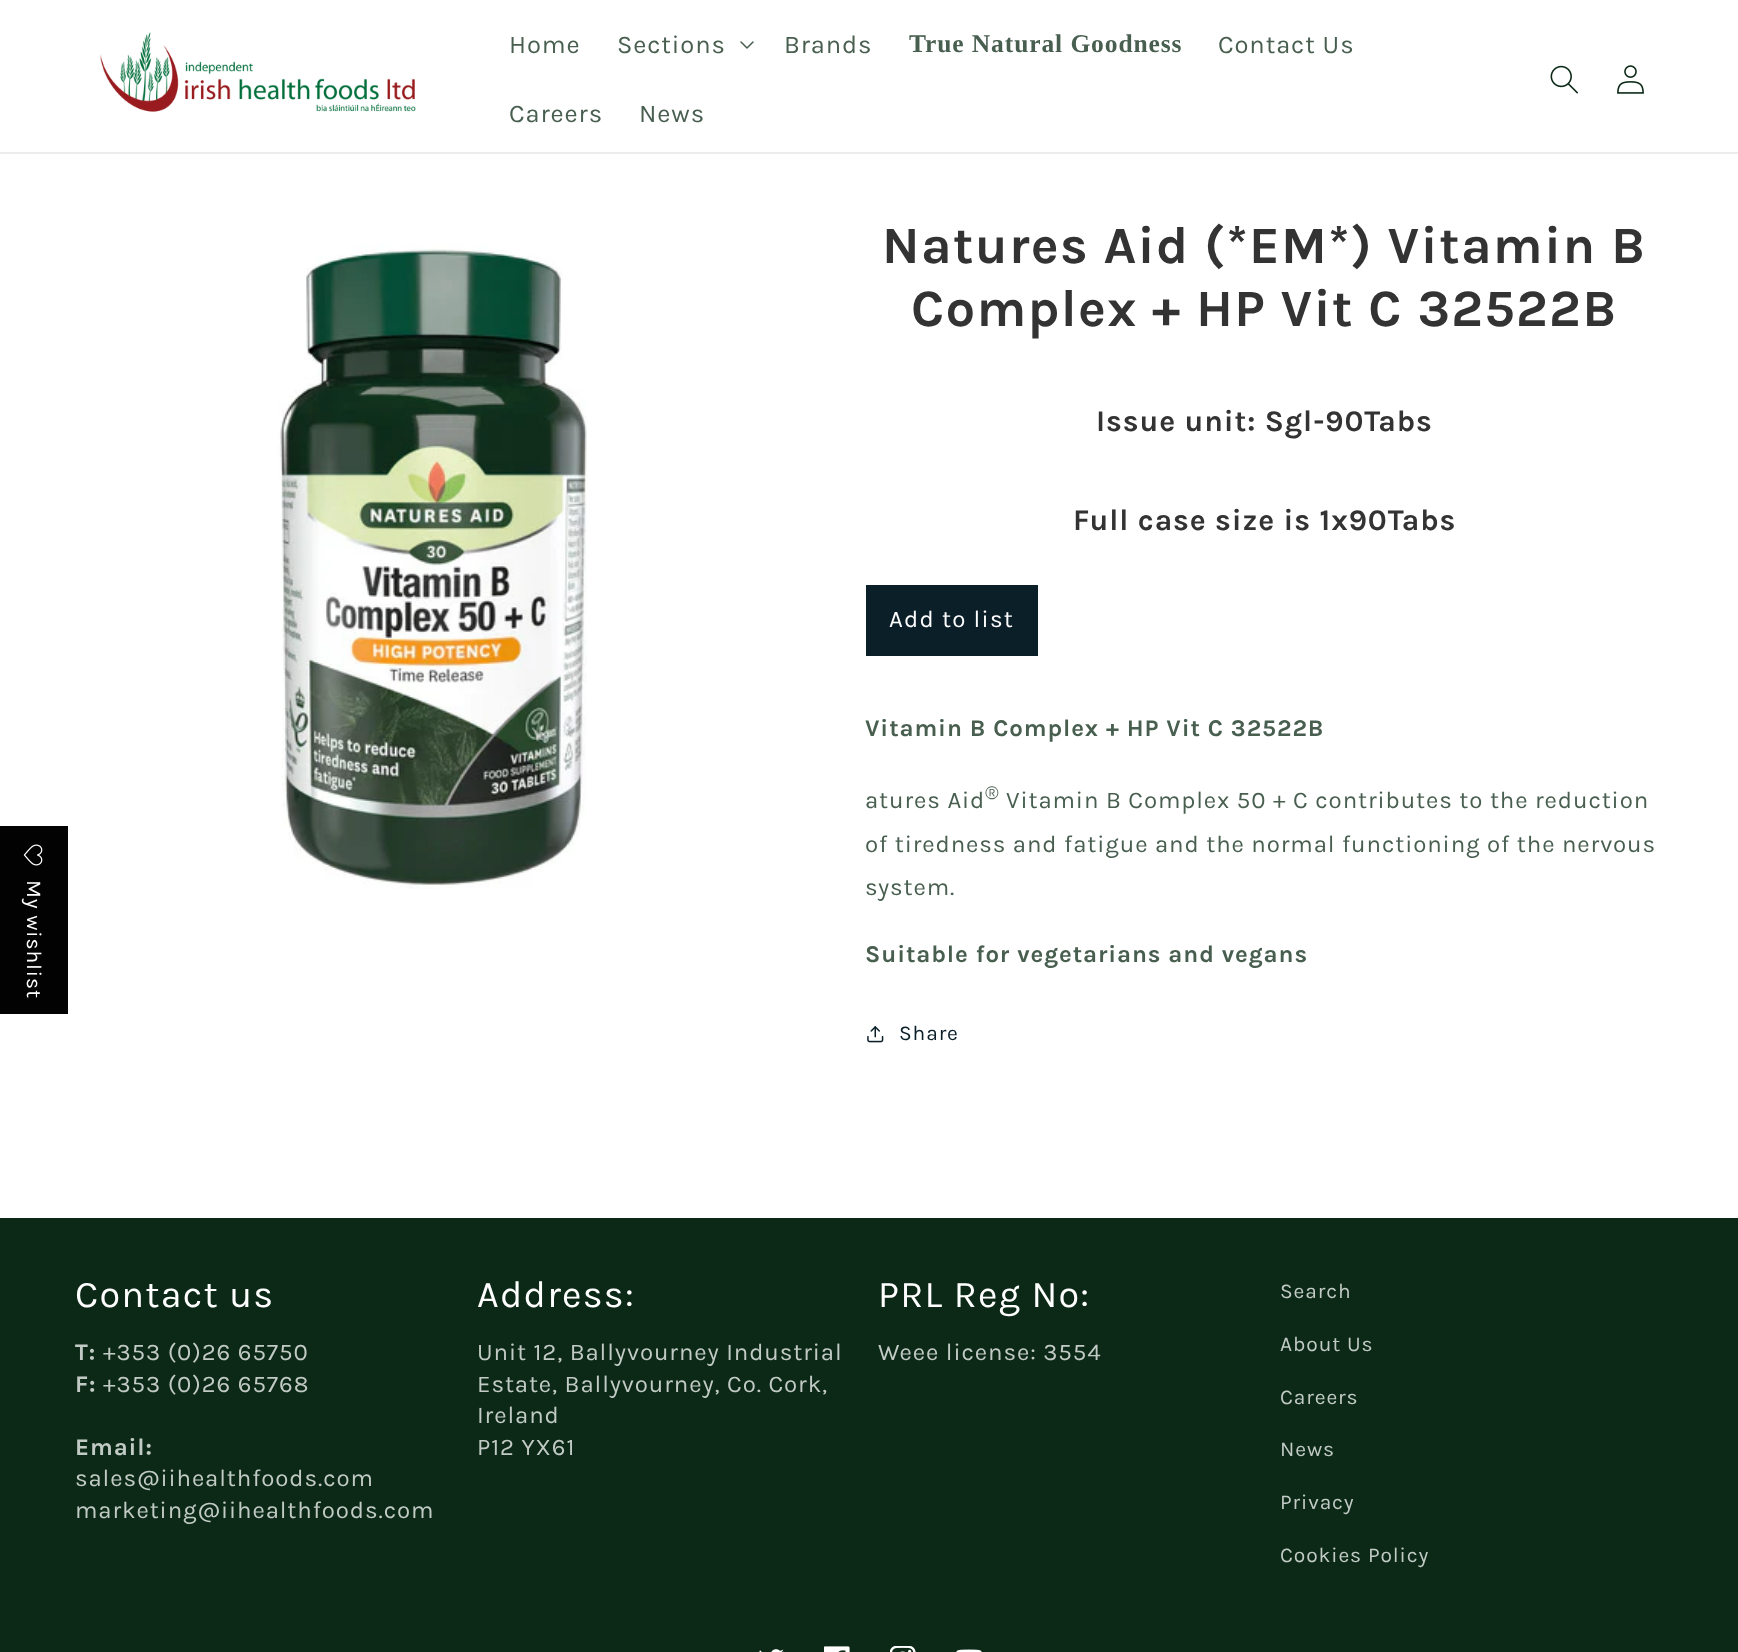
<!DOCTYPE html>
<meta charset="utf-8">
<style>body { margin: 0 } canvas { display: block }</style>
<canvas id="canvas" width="1738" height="1652"></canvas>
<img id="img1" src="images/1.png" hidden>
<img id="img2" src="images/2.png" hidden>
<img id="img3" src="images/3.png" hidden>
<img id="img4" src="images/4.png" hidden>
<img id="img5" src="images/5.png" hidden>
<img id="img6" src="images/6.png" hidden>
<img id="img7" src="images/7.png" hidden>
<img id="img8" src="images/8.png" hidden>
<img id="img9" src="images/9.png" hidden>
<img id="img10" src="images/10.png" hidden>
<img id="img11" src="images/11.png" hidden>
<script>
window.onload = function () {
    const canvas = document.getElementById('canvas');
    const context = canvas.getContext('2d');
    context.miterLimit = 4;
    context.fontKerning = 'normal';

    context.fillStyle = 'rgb(255, 255, 255)';
    context.fillRect(0, 0, 1738, 1652);
    context.fillStyle = 'rgb(235, 238, 236)';
    context.fillRect(0, 152, 1738, 2);
    context.drawImage(document.getElementById('img1'), 100, 32, 316, 80);
    context.drawImage(document.getElementById('img2'), 740, 41, 14, 8);
    context.drawImage(document.getElementById('img3'), 1550, 65, 28, 29);
    context.drawImage(document.getElementById('img4'), 1617, 65, 27, 29);
    context.fillStyle = 'rgb(2, 2, 2)';
    context.fillRect(0, 826, 68, 188);
    context.drawImage(document.getElementById('img5'), 23, 844, 20, 22);
    context.drawImage(document.getElementById('img6'), 278, 244, 309, 645);
    context.fillStyle = 'rgb(11, 31, 41)';
    context.fillRect(866, 585, 172, 71);
    context.drawImage(document.getElementById('img7'), 867, 1026, 17, 17);
    context.fillStyle = 'rgb(11, 41, 22)';
    context.fillRect(0, 1218, 1738, 434);
    context.drawImage(document.getElementById('img8'), 759, 1649, 25, 3);
    context.drawImage(document.getElementById('img9'), 824, 1646, 26, 6);
    context.drawImage(document.getElementById('img10'), 890, 1646, 26, 6);
    context.drawImage(document.getElementById('img11'), 956, 1649, 26, 3);
    context.letterSpacing = '0.9px';
    context.font = '25.5px Karla';
    context.fillStyle = 'rgb(72, 95, 80)';
    context.fillText('Home', 509, 53);
    context.fillText('Sections', 617, 53);
    context.fillText('Brands', 784, 53);
    context.font = 'bold 25.5px Liberation Serif';
    context.fillText('True Natural Goodness', 909, 52);
    context.font = '25.5px Karla';
    context.fillText('Contact Us', 1218, 53);
    context.fillText('Careers', 509, 122);
    context.fillText('News', 639, 122);
    context.font = '21px Karla';
    context.fillStyle = 'rgb(255, 255, 255)';
    context.save();
    context.translate(27, 880);
    context.rotate(90 * Math.PI / 180);
    context.fillText('My wishlist', 0, 0);
    context.restore();
    context.letterSpacing = '1.25px';
    context.font = 'bold 52.5px Karla';
    context.fillStyle = 'rgb(51, 51, 51)';
    context.fillText('Natures Aid (*EM*) Vitamin B', 882, 263);
    context.fillText('Complex + HP Vit C 32522B', 911, 326);
    context.letterSpacing = '0.9px';
    context.font = 'bold 30px Karla';
    context.fillText('Issue unit: Sgl-90Tabs', 1096, 431);
    context.fillText('Full case size is 1x90Tabs', 1073, 530);
    context.letterSpacing = '1.25px';
    context.font = '24px Karla';
    context.fillStyle = 'rgb(255, 255, 255)';
    context.fillText('Add to list', 889, 627);
    context.letterSpacing = '0.9px';
    context.font = 'bold 24px Karla';
    context.fillStyle = 'rgb(72, 95, 80)';
    context.fillText('Vitamin B Complex + HP Vit C 32522B', 865, 736);
    context.font = '24px Karla';
    context.fillText('atures Aid', 865, 808);
    context.font = '20px Karla';
    context.fillText('®', 985, 799);
    context.font = '24px Karla';
    context.fillText('Vitamin B Complex 50 + C contributes to the reduction', 1006, 808);
    context.fillText('of tiredness and fatigue and the normal functioning of the nervous', 865, 852);
    context.fillText('system.', 865, 895);
    context.font = 'bold 24px Karla';
    context.fillText('Suitable for vegetarians and vegans', 865, 962);
    context.font = '21px Karla';
    context.fillStyle = 'rgb(11, 31, 41)';
    context.fillText('Share', 899, 1040);
    context.letterSpacing = '1.25px';
    context.font = '37.75px Karla';
    context.fillStyle = 'rgb(255, 255, 255)';
    context.fillText('Contact us', 75, 1307);
    context.letterSpacing = '0.9px';
    context.font = 'bold 24px Karla';
    context.fillStyle = 'rgb(194, 202, 197)';
    context.fillText('T:', 75, 1360);
    context.font = '24px Karla';
    context.fillText('+353 (0)26 65750', 103, 1360);
    context.font = 'bold 24px Karla';
    context.fillText('F:', 75, 1392);
    context.font = '24px Karla';
    context.fillText('+353 (0)26 65768', 103, 1392);
    context.font = 'bold 24px Karla';
    context.fillText('Email:', 75, 1455);
    context.font = '24px Karla';
    context.fillText('sales@iihealthfoods.com', 75, 1486);
    context.fillText('marketing@iihealthfoods.com', 75, 1518);
    context.letterSpacing = '1.25px';
    context.font = '37.75px Karla';
    context.fillStyle = 'rgb(255, 255, 255)';
    context.fillText('Address:', 477, 1307);
    context.letterSpacing = '0.9px';
    context.font = '24px Karla';
    context.fillStyle = 'rgb(194, 202, 197)';
    context.fillText('Unit 12, Ballyvourney Industrial', 477, 1360);
    context.fillText('Estate, Ballyvourney, Co. Cork,', 477, 1392);
    context.fillText('Ireland', 477, 1423);
    context.fillText('P12 YX61', 477, 1455);
    context.letterSpacing = '1.25px';
    context.font = '37.75px Karla';
    context.fillStyle = 'rgb(255, 255, 255)';
    context.fillText('PRL Reg No:', 878, 1307);
    context.letterSpacing = '0.9px';
    context.font = '24px Karla';
    context.fillStyle = 'rgb(194, 202, 197)';
    context.fillText('Weee license: 3554', 878, 1360);
    context.font = '21px Karla';
    context.fillText('Search', 1280, 1298);
    context.fillText('About Us', 1280, 1351);
    context.fillText('Careers', 1280, 1404);
    context.fillText('News', 1280, 1456);
    context.fillText('Privacy', 1280, 1509);
    context.fillText('Cookies Policy', 1280, 1562);
};
</script>
